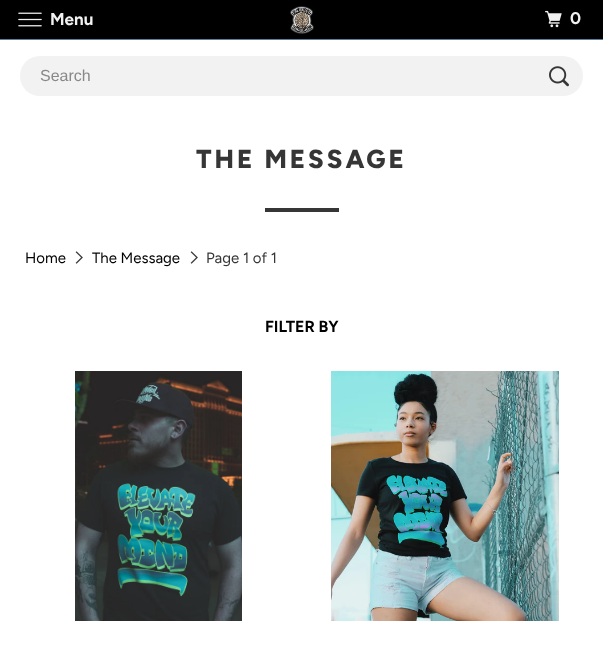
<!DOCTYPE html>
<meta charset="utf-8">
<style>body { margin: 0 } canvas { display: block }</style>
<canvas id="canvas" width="603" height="649"></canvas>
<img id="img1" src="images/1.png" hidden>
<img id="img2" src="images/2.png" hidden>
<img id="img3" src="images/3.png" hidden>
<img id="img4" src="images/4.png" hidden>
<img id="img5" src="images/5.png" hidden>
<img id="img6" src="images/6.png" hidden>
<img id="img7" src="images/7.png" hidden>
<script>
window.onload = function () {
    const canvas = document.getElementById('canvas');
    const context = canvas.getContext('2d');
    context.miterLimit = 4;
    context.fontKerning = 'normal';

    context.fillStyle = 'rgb(0, 0, 0)';
    context.fillRect(0, 0, 603, 649);
    context.fillStyle = 'rgb(84, 129, 162)';
    context.fillRect(0, 39, 603, 1);
    context.drawImage(document.getElementById('img1'), 18, 12, 24, 15);
    context.drawImage(document.getElementById('img2'), 290, 6, 24, 28);
    context.drawImage(document.getElementById('img3'), 545, 10, 17, 18);
    context.fillStyle = 'rgb(255, 255, 255)';
    context.fillRect(0, 40, 603, 609);
    context.fillStyle = 'rgb(242, 242, 242)';
    context.beginPath();
    context.roundRect(20, 56, 563, 40, 20);
    context.fill();
    context.drawImage(document.getElementById('img4'), 549, 66, 20, 21);
    context.fillStyle = 'rgb(54, 54, 54)';
    context.fillRect(265, 208, 74, 4);
    context.drawImage(document.getElementById('img5'), 75, 251, 8, 13);
    context.drawImage(document.getElementById('img5'), 190, 251, 8, 13);
    context.drawImage(document.getElementById('img6'), 75, 371, 167, 250);
    context.drawImage(document.getElementById('img7'), 331, 371, 228, 250);
    context.font = 'bold 17px Figtree';
    context.fillStyle = 'rgb(242, 242, 242)';
    context.fillText('Menu', 50, 25);
    context.fillText('0', 570, 24);
    context.font = '16px Liberation Sans';
    context.fillStyle = 'rgb(136, 136, 136)';
    context.fillText('Search', 40, 81);
    context.letterSpacing = '3px';
    context.font = '800 26px Figtree';
    context.fillStyle = 'rgb(54, 54, 54)';
    context.fillText('THE MESSAGE', 196, 168);
    context.letterSpacing = '0px';
    context.font = '15px Figtree';
    context.fillStyle = 'rgb(0, 0, 0)';
    context.fillText('Home', 25, 263);
    context.fillText('The Message', 92, 263);
    context.fillStyle = 'rgb(54, 54, 54)';
    context.fillText('Page 1 of 1', 206, 263);
    context.font = 'bold 16px Figtree';
    context.fillStyle = 'rgb(0, 0, 0)';
    context.fillText('FILTER BY', 265, 332);
};
</script>
